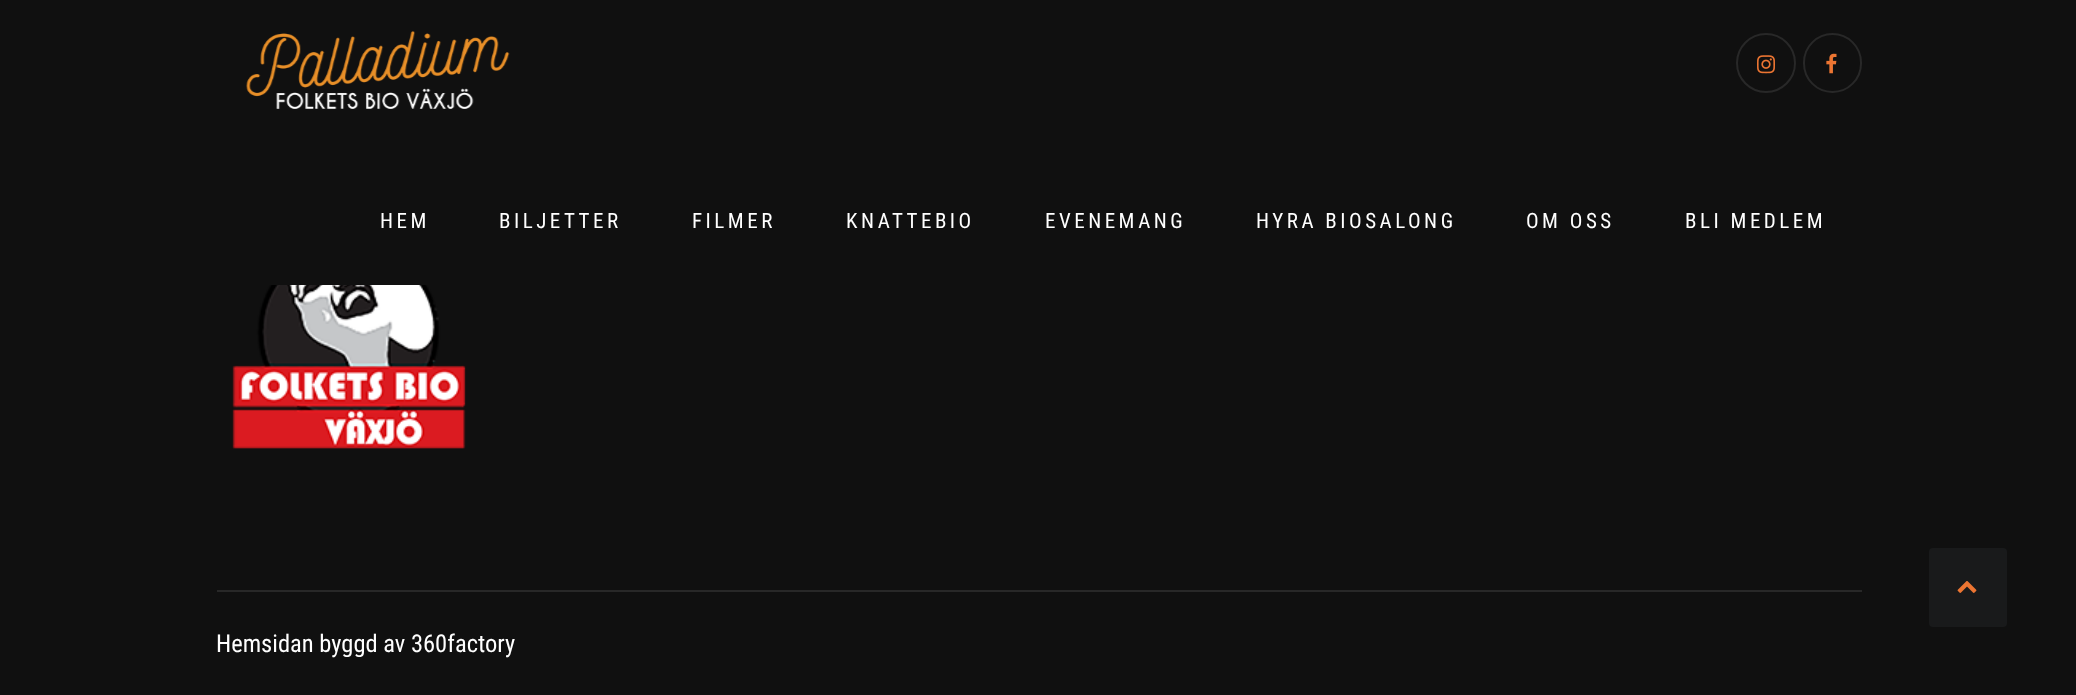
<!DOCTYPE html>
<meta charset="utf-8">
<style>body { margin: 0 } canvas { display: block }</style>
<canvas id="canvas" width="2076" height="695"></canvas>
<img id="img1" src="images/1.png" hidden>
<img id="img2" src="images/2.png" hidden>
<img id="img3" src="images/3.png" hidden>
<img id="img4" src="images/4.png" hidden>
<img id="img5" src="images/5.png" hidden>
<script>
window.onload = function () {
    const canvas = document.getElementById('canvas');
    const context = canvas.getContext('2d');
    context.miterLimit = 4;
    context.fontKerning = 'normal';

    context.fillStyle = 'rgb(16, 16, 16)';
    context.fillRect(0, 0, 2076, 695);
    context.drawImage(document.getElementById('img1'), 246, 31, 264, 78);
    context.beginPath();
    context.arc(1766, 63, 29, 0, 2 * Math.PI);
    context.strokeStyle = 'rgb(40, 40, 40)';
    context.lineWidth = 2;
    context.stroke();
    context.drawImage(document.getElementById('img2'), 1757, 55, 18, 19);
    context.beginPath();
    context.roundRect(1804, 34, 57, 58, 28.5);
    context.stroke();
    context.drawImage(document.getElementById('img3'), 1826, 53, 11, 21);
    context.fillStyle = 'rgb(25, 26, 27)';
    context.beginPath();
    context.roundRect(1929, 548, 78, 79, 4);
    context.fill();
    context.drawImage(document.getElementById('img4'), 1957, 581, 20, 12);
    context.drawImage(document.getElementById('img5'), 232, 285, 234, 164);
    context.fillStyle = 'rgb(40, 40, 40)';
    context.fillRect(217, 590, 1645, 2);
    context.letterSpacing = '3.5px';
    context.font = '21px Roboto Condensed';
    context.fillStyle = 'rgb(255, 255, 255)';
    context.fillText('HEM', 380, 228);
    context.fillText('BILJETTER', 499, 228);
    context.fillText('FILMER', 692, 228);
    context.fillText('KNATTEBIO', 846, 228);
    context.fillText('EVENEMANG', 1045, 228);
    context.fillText('HYRA BIOSALONG', 1256, 228);
    context.fillText('OM OSS', 1526, 228);
    context.fillText('BLI MEDLEM', 1685, 228);
    context.letterSpacing = '0px';
    context.font = '24.5px Roboto Condensed';
    context.fillText('Hemsidan byggd av 360factory', 216, 652);
};
</script>
